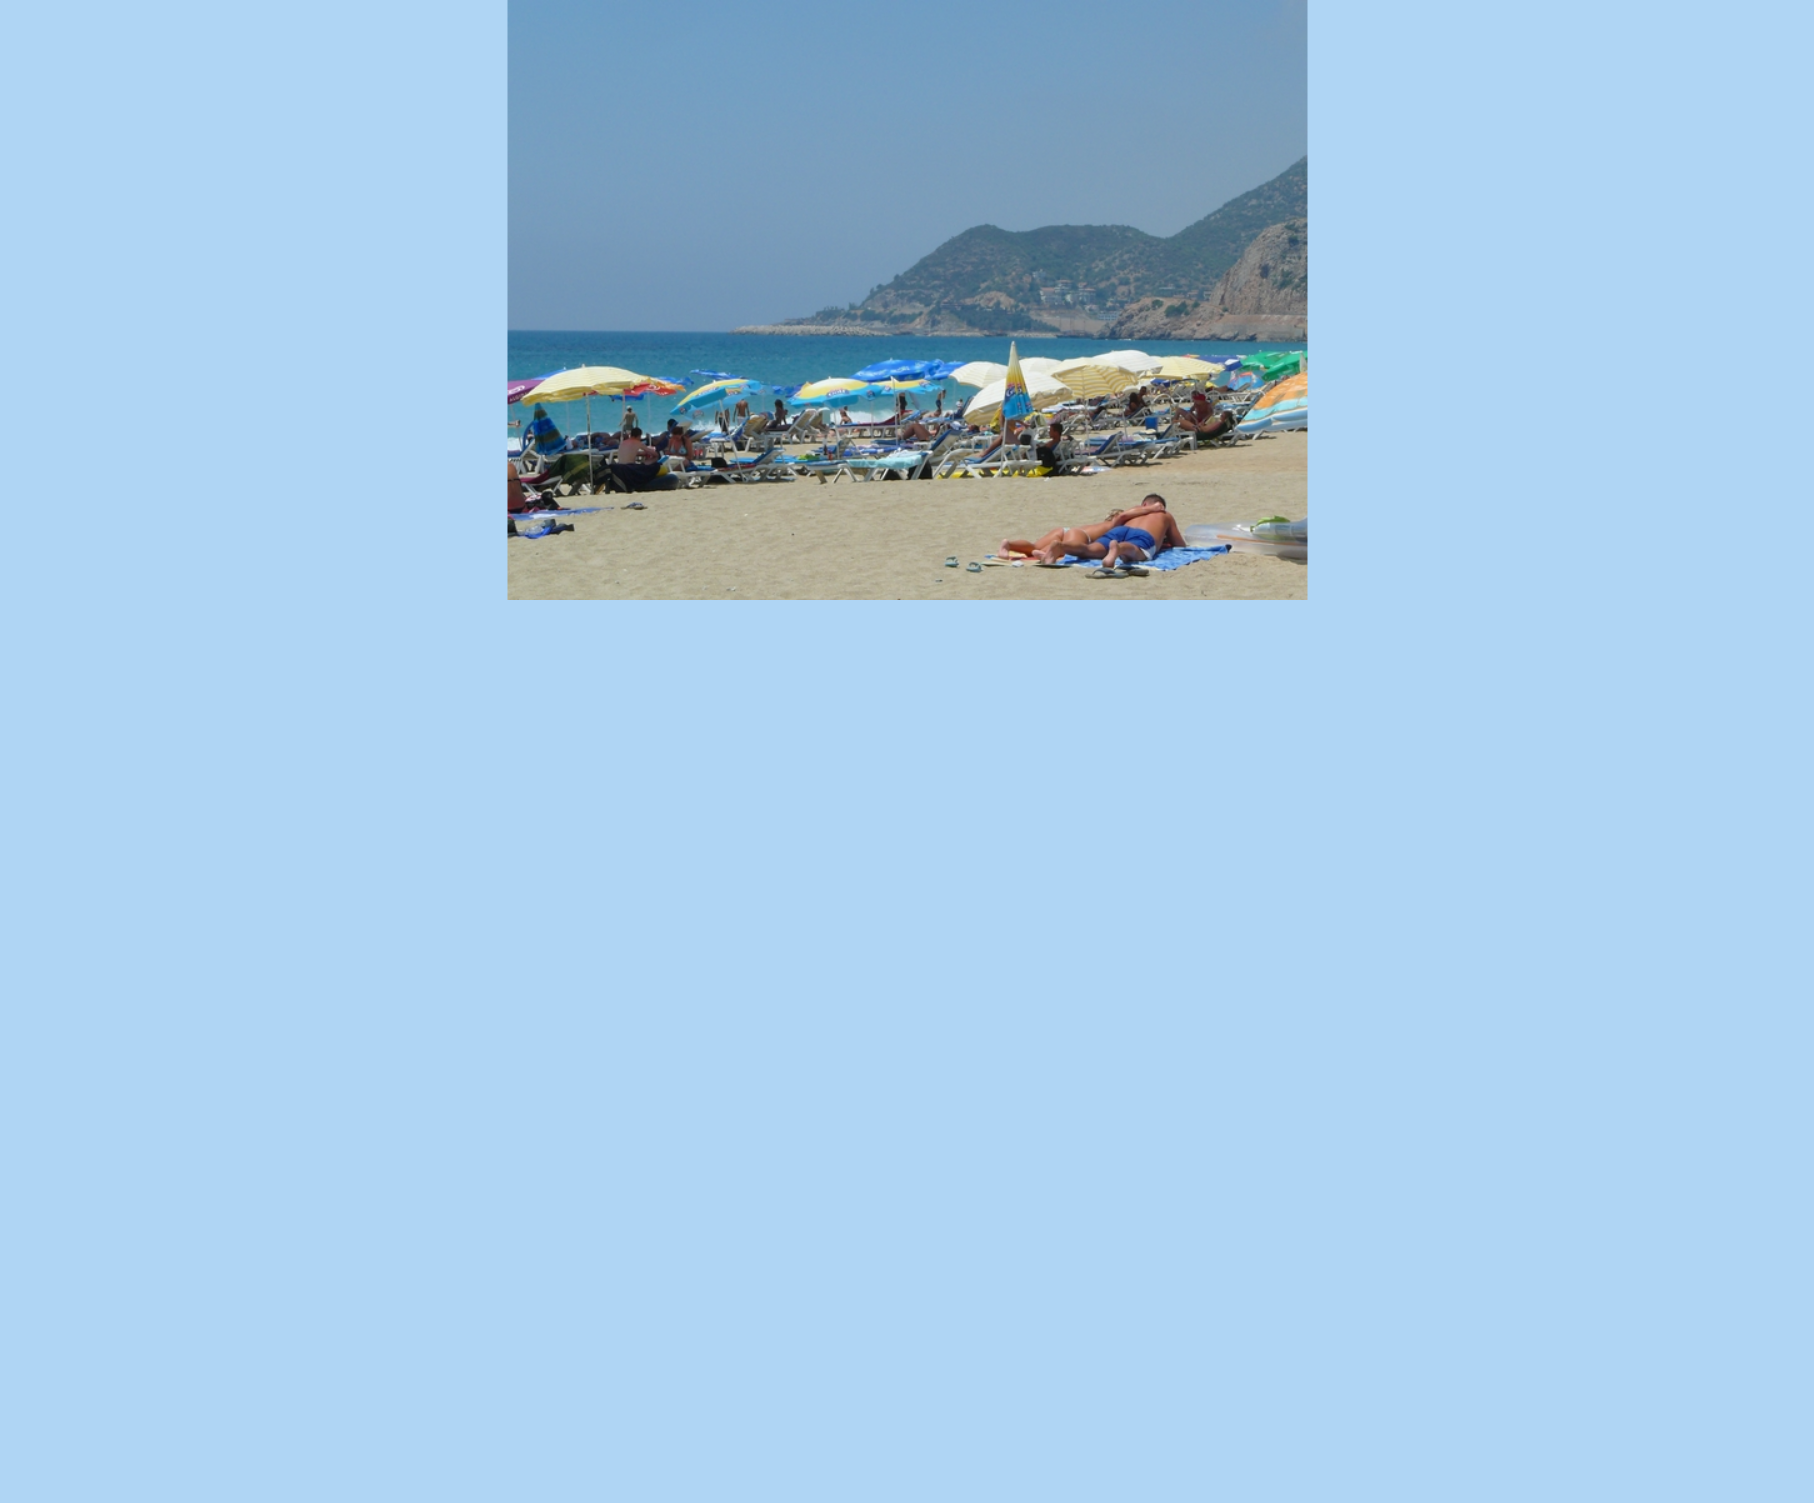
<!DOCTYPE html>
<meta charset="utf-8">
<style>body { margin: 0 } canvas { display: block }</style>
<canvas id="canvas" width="1814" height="1503"></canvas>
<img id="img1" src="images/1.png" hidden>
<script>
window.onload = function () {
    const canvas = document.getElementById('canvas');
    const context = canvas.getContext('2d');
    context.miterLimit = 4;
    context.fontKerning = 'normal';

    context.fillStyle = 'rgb(175, 213, 244)';
    context.fillRect(0, 0, 1814, 1503);
    context.drawImage(document.getElementById('img1'), 507, 0, 801, 600);
};
</script>
